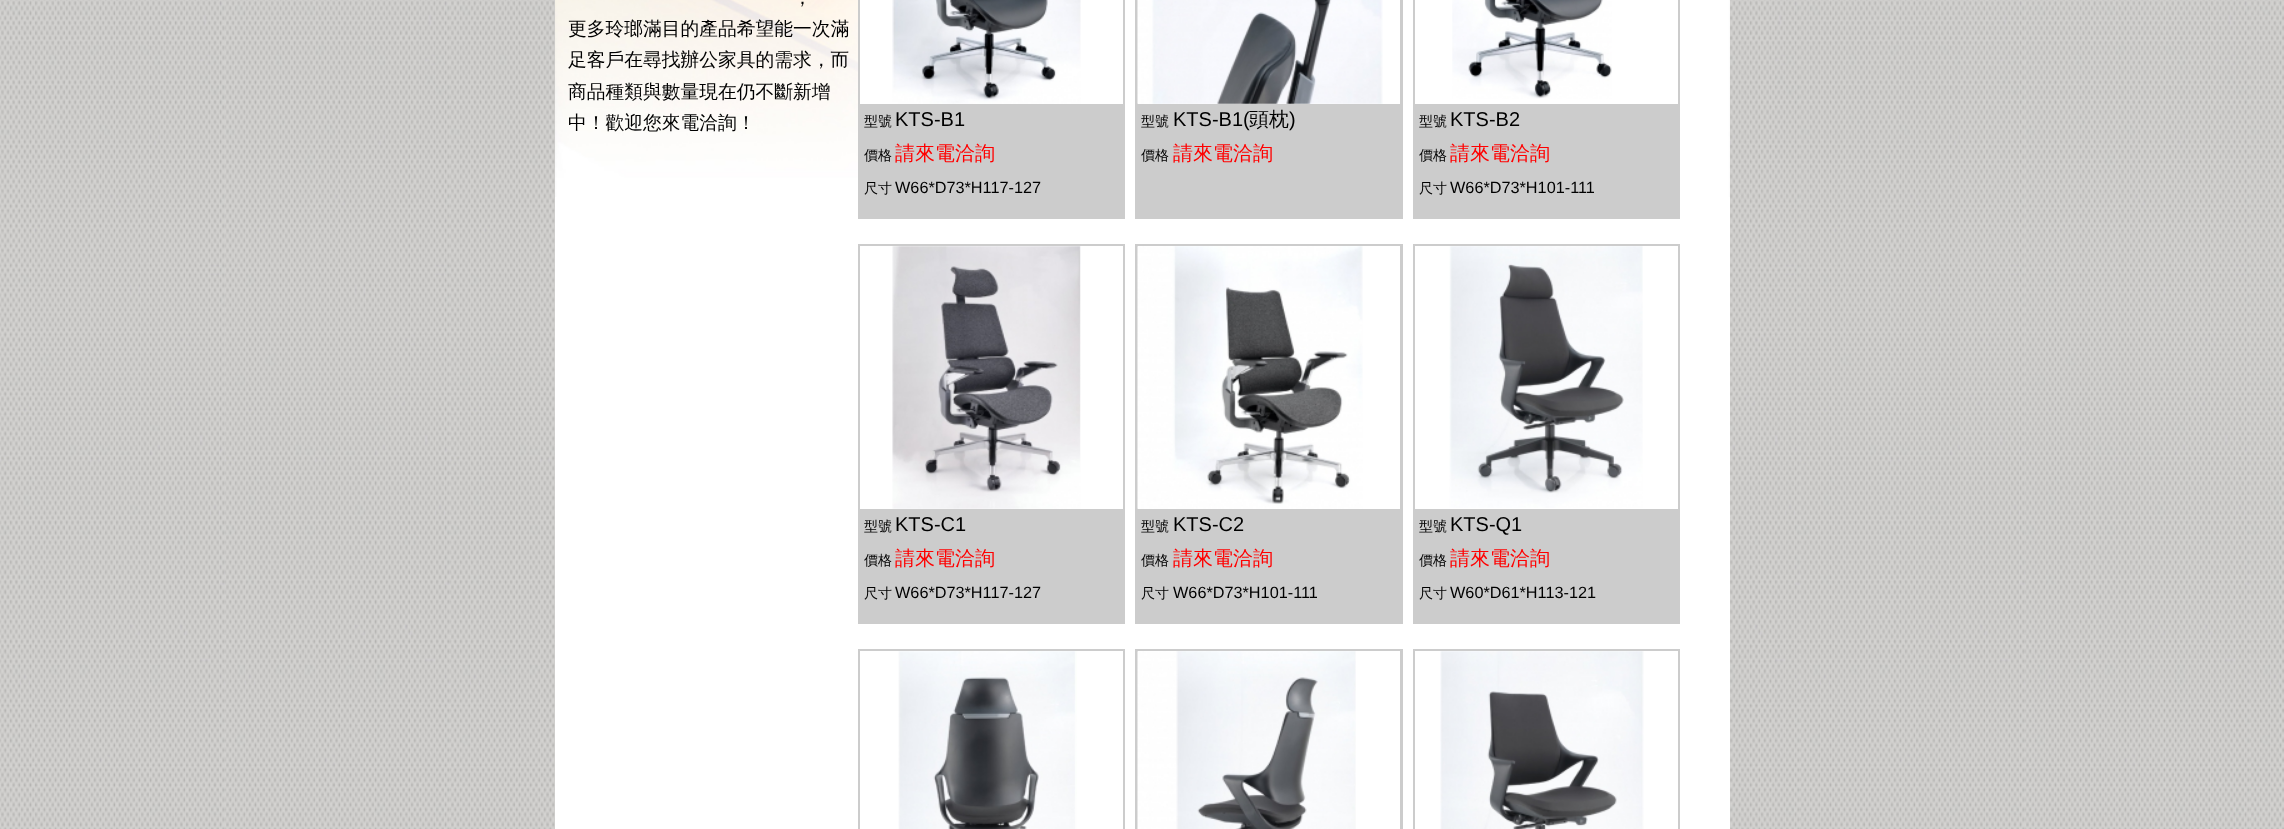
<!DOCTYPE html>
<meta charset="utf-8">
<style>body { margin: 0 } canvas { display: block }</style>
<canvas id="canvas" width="2284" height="829"></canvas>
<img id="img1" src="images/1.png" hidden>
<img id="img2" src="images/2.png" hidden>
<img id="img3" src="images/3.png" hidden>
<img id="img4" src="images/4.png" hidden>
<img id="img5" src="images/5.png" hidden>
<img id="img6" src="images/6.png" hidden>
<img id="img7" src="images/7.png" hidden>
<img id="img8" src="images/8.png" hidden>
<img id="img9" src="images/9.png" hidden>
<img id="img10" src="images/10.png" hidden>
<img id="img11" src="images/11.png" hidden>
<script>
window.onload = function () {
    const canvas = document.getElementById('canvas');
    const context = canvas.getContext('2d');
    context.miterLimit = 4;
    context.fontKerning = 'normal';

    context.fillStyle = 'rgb(255, 255, 255)';
    context.fillRect(0, 0, 2284, 829);
    context.drawImage(document.getElementById('img1'), 0, 0, 2284, 829);
    context.fillRect(555, 197, 1175, 632);
    context.drawImage(document.getElementById('img2'), 555, 0, 1175, 197);
    context.fillStyle = 'rgb(204, 204, 204)';
    context.fillRect(858, 0, 267, 219);
    context.fillStyle = 'rgb(255, 255, 255)';
    context.fillRect(860, 0, 263, 104);
    context.drawImage(document.getElementById('img3'), 892, 0, 189, 104);
    context.fillStyle = 'rgb(204, 204, 204)';
    context.fillRect(1135, 0, 268, 219);
    context.fillStyle = 'rgb(255, 255, 255)';
    context.fillRect(1138, 0, 262, 104);
    context.drawImage(document.getElementById('img4'), 1137, 0, 246, 104);
    context.fillStyle = 'rgb(204, 204, 204)';
    context.fillRect(1413, 0, 267, 219);
    context.fillStyle = 'rgb(255, 255, 255)';
    context.fillRect(1415, 0, 263, 104);
    context.drawImage(document.getElementById('img5'), 1452, 0, 160, 99);
    context.fillStyle = 'rgb(204, 204, 204)';
    context.fillRect(858, 244, 267, 380);
    context.fillStyle = 'rgb(255, 255, 255)';
    context.fillRect(860, 246, 263, 263);
    context.drawImage(document.getElementById('img6'), 892, 246, 189, 263);
    context.fillStyle = 'rgb(204, 204, 204)';
    context.fillRect(1135, 244, 268, 380);
    context.fillStyle = 'rgb(255, 255, 255)';
    context.fillRect(1138, 246, 262, 263);
    context.drawImage(document.getElementById('img7'), 1137, 246, 226, 263);
    context.fillStyle = 'rgb(204, 204, 204)';
    context.fillRect(1413, 244, 267, 380);
    context.fillStyle = 'rgb(255, 255, 255)';
    context.fillRect(1415, 246, 263, 263);
    context.drawImage(document.getElementById('img8'), 1449, 246, 194, 262);
    context.fillStyle = 'rgb(204, 204, 204)';
    context.fillRect(858, 649, 267, 180);
    context.fillStyle = 'rgb(255, 255, 255)';
    context.fillRect(860, 651, 263, 178);
    context.drawImage(document.getElementById('img9'), 898, 651, 179, 178);
    context.fillStyle = 'rgb(204, 204, 204)';
    context.fillRect(1135, 649, 268, 180);
    context.fillStyle = 'rgb(255, 255, 255)';
    context.fillRect(1138, 651, 262, 178);
    context.drawImage(document.getElementById('img10'), 1137, 651, 219, 178);
    context.fillStyle = 'rgb(204, 204, 204)';
    context.fillRect(1413, 649, 267, 180);
    context.fillStyle = 'rgb(255, 255, 255)';
    context.fillRect(1415, 651, 263, 178);
    context.drawImage(document.getElementById('img11'), 1440, 651, 204, 178);
    context.font = '500 18.75px WenQuanYi Zen Hei';
    context.fillStyle = 'rgb(0, 0, 0)';
    context.fillText('，', 793, 4);
    context.fillText('更多玲瑯滿目的產品希望能一次滿', 568, 35);
    context.fillText('足客戶在尋找辦公家具的需求，而', 568, 66);
    context.fillText('商品種類與數量現在仍不斷新增', 568, 98);
    context.fillText('中！歡迎您來電洽詢！', 568, 129);
    context.font = '500 14px WenQuanYi Zen Hei';
    context.fillText('型號', 864, 126);
    context.font = '20px Liberation Sans';
    context.fillText('KTS-B1', 895, 126);
    context.font = '500 14px WenQuanYi Zen Hei';
    context.fillText('價格', 864, 160);
    context.font = '500 20px WenQuanYi Zen Hei';
    context.fillStyle = 'rgb(255, 0, 0)';
    context.fillText('請來電洽詢', 895, 160);
    context.font = '500 14px WenQuanYi Zen Hei';
    context.fillStyle = 'rgb(0, 0, 0)';
    context.fillText('尺寸', 864, 193);
    context.font = '16.25px Liberation Sans';
    context.fillText('W66*D73*H117-127', 895, 193);
    context.font = '500 14px WenQuanYi Zen Hei';
    context.fillText('型號', 1141, 126);
    context.font = '20px Liberation Sans';
    context.fillText('KTS-B1(', 1173, 126);
    context.font = '500 20px WenQuanYi Zen Hei';
    context.fillText('頭枕', 1249, 126);
    context.font = '20px Liberation Sans';
    context.fillText(')', 1289, 126);
    context.font = '500 14px WenQuanYi Zen Hei';
    context.fillText('價格', 1141, 160);
    context.font = '500 20px WenQuanYi Zen Hei';
    context.fillStyle = 'rgb(255, 0, 0)';
    context.fillText('請來電洽詢', 1173, 160);
    context.font = '500 14px WenQuanYi Zen Hei';
    context.fillStyle = 'rgb(0, 0, 0)';
    context.fillText('型號', 1419, 126);
    context.font = '20px Liberation Sans';
    context.fillText('KTS-B2', 1450, 126);
    context.font = '500 14px WenQuanYi Zen Hei';
    context.fillText('價格', 1419, 160);
    context.font = '500 20px WenQuanYi Zen Hei';
    context.fillStyle = 'rgb(255, 0, 0)';
    context.fillText('請來電洽詢', 1450, 160);
    context.font = '500 14px WenQuanYi Zen Hei';
    context.fillStyle = 'rgb(0, 0, 0)';
    context.fillText('尺寸', 1419, 193);
    context.font = '16.25px Liberation Sans';
    context.fillText('W66*D73*H101-111', 1450, 193);
    context.font = '500 14px WenQuanYi Zen Hei';
    context.fillText('型號', 864, 531);
    context.font = '20px Liberation Sans';
    context.fillText('KTS-C1', 895, 531);
    context.font = '500 14px WenQuanYi Zen Hei';
    context.fillText('價格', 864, 565);
    context.font = '500 20px WenQuanYi Zen Hei';
    context.fillStyle = 'rgb(255, 0, 0)';
    context.fillText('請來電洽詢', 895, 565);
    context.font = '500 14px WenQuanYi Zen Hei';
    context.fillStyle = 'rgb(0, 0, 0)';
    context.fillText('尺寸', 864, 598);
    context.font = '16.25px Liberation Sans';
    context.fillText('W66*D73*H117-127', 895, 598);
    context.font = '500 14px WenQuanYi Zen Hei';
    context.fillText('型號', 1141, 531);
    context.font = '20px Liberation Sans';
    context.fillText('KTS-C2', 1173, 531);
    context.font = '500 14px WenQuanYi Zen Hei';
    context.fillText('價格', 1141, 565);
    context.font = '500 20px WenQuanYi Zen Hei';
    context.fillStyle = 'rgb(255, 0, 0)';
    context.fillText('請來電洽詢', 1173, 565);
    context.font = '500 14px WenQuanYi Zen Hei';
    context.fillStyle = 'rgb(0, 0, 0)';
    context.fillText('尺寸', 1141, 598);
    context.font = '16.25px Liberation Sans';
    context.fillText('W66*D73*H101-111', 1173, 598);
    context.font = '500 14px WenQuanYi Zen Hei';
    context.fillText('型號', 1419, 531);
    context.font = '20px Liberation Sans';
    context.fillText('KTS-Q1', 1450, 531);
    context.font = '500 14px WenQuanYi Zen Hei';
    context.fillText('價格', 1419, 565);
    context.font = '500 20px WenQuanYi Zen Hei';
    context.fillStyle = 'rgb(255, 0, 0)';
    context.fillText('請來電洽詢', 1450, 565);
    context.font = '500 14px WenQuanYi Zen Hei';
    context.fillStyle = 'rgb(0, 0, 0)';
    context.fillText('尺寸', 1419, 598);
    context.font = '16.25px Liberation Sans';
    context.fillText('W60*D61*H113-121', 1450, 598);
};
</script>
